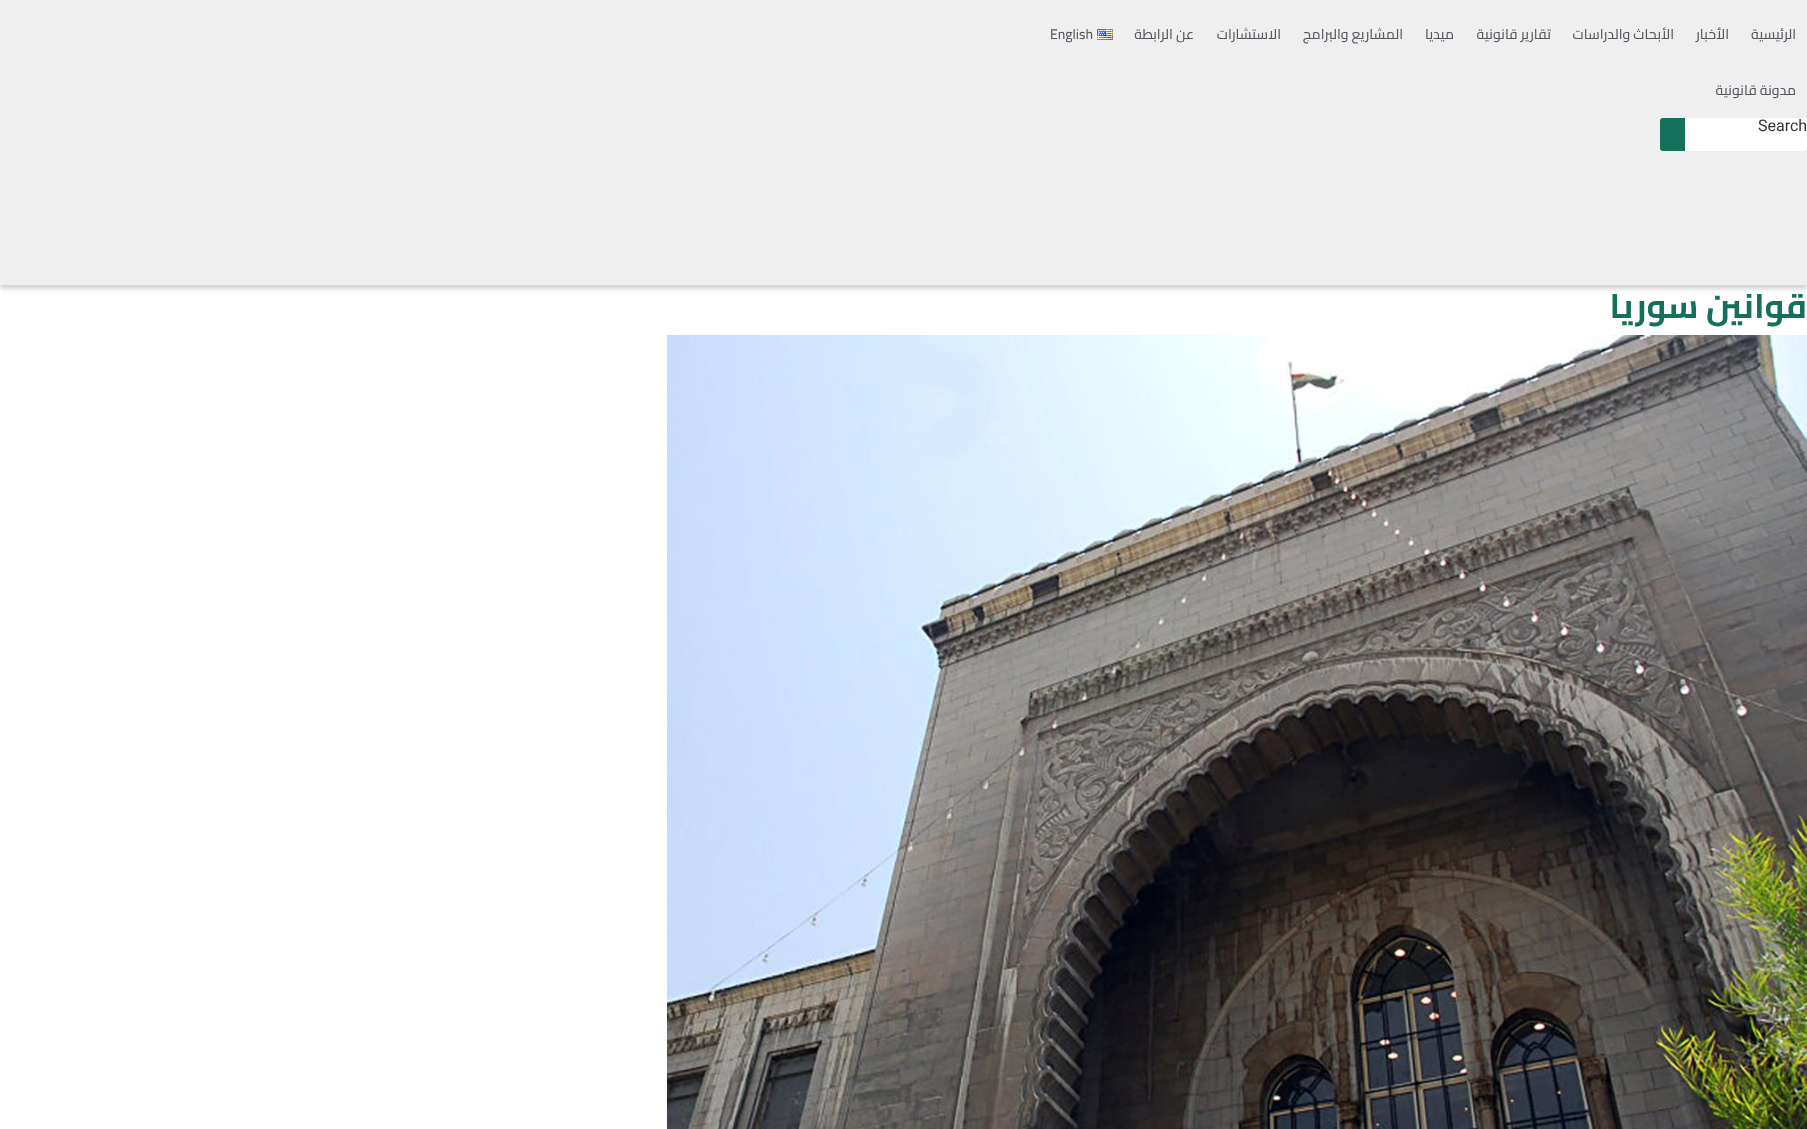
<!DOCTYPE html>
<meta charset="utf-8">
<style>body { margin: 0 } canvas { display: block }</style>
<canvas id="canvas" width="1807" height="1129"></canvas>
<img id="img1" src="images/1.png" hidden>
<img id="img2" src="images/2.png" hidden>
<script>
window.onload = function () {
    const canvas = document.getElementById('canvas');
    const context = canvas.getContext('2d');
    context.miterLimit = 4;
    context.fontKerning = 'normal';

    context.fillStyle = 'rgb(255, 255, 255)';
    context.fillRect(0, 0, 1807, 1129);
    context.fillStyle = 'rgba(0, 0, 0, 0.17)';
    context.filter = 'blur(2px)';
    context.beginPath();
    context.rect(0, 4, 1807, 285);
    context.fill();
    context.filter = 'none';
    context.fillStyle = 'rgb(239, 239, 239)';
    context.fillRect(0, 0, 1807, 285);
    context.drawImage(document.getElementById('img1'), 1097, 29, 16, 11);
    context.fillStyle = 'rgb(255, 255, 255)';
    context.beginPath();
    context.roundRect(1660, 118, 147, 33, 3);
    context.fill();
    context.fillStyle = 'rgb(20, 111, 91)';
    context.beginPath();
    context.roundRect(1660, 118, 25, 33, [3, 0, 0, 3]);
    context.fill();
    context.drawImage(document.getElementById('img2'), 667, 335, 1140, 794);
    context.direction = 'rtl';
    context.font = '500 14px Cairo';
    context.fillStyle = 'rgb(84, 89, 95)';
    context.fillText('الرئيسية', 1796, 39);
    context.fillText('الأخبار', 1729, 39);
    context.fillText('الأبحاث والدراسات', 1674, 39);
    context.fillText('تقارير قانونية', 1551, 39);
    context.fillText('ميديا', 1454, 39);
    context.fillText('المشاريع والبرامج', 1403, 39);
    context.fillText('الاستشارات', 1281, 39);
    context.fillText('عن الرابطة', 1194, 39);
    context.direction = 'ltr';
    context.fillText('English', 1050, 39);
    context.direction = 'rtl';
    context.fillText('مدونة قانونية', 1796, 95);
    context.direction = 'ltr';
    context.font = '16px Roboto';
    context.fillStyle = 'rgb(51, 51, 51)';
    context.fillText('Search', 1758, 131);
    context.direction = 'rtl';
    context.font = 'bold 34px Cairo';
    context.fillStyle = 'rgb(20, 111, 91)';
    context.fillText('قوانين سوريا', 1807, 318);
};
</script>
